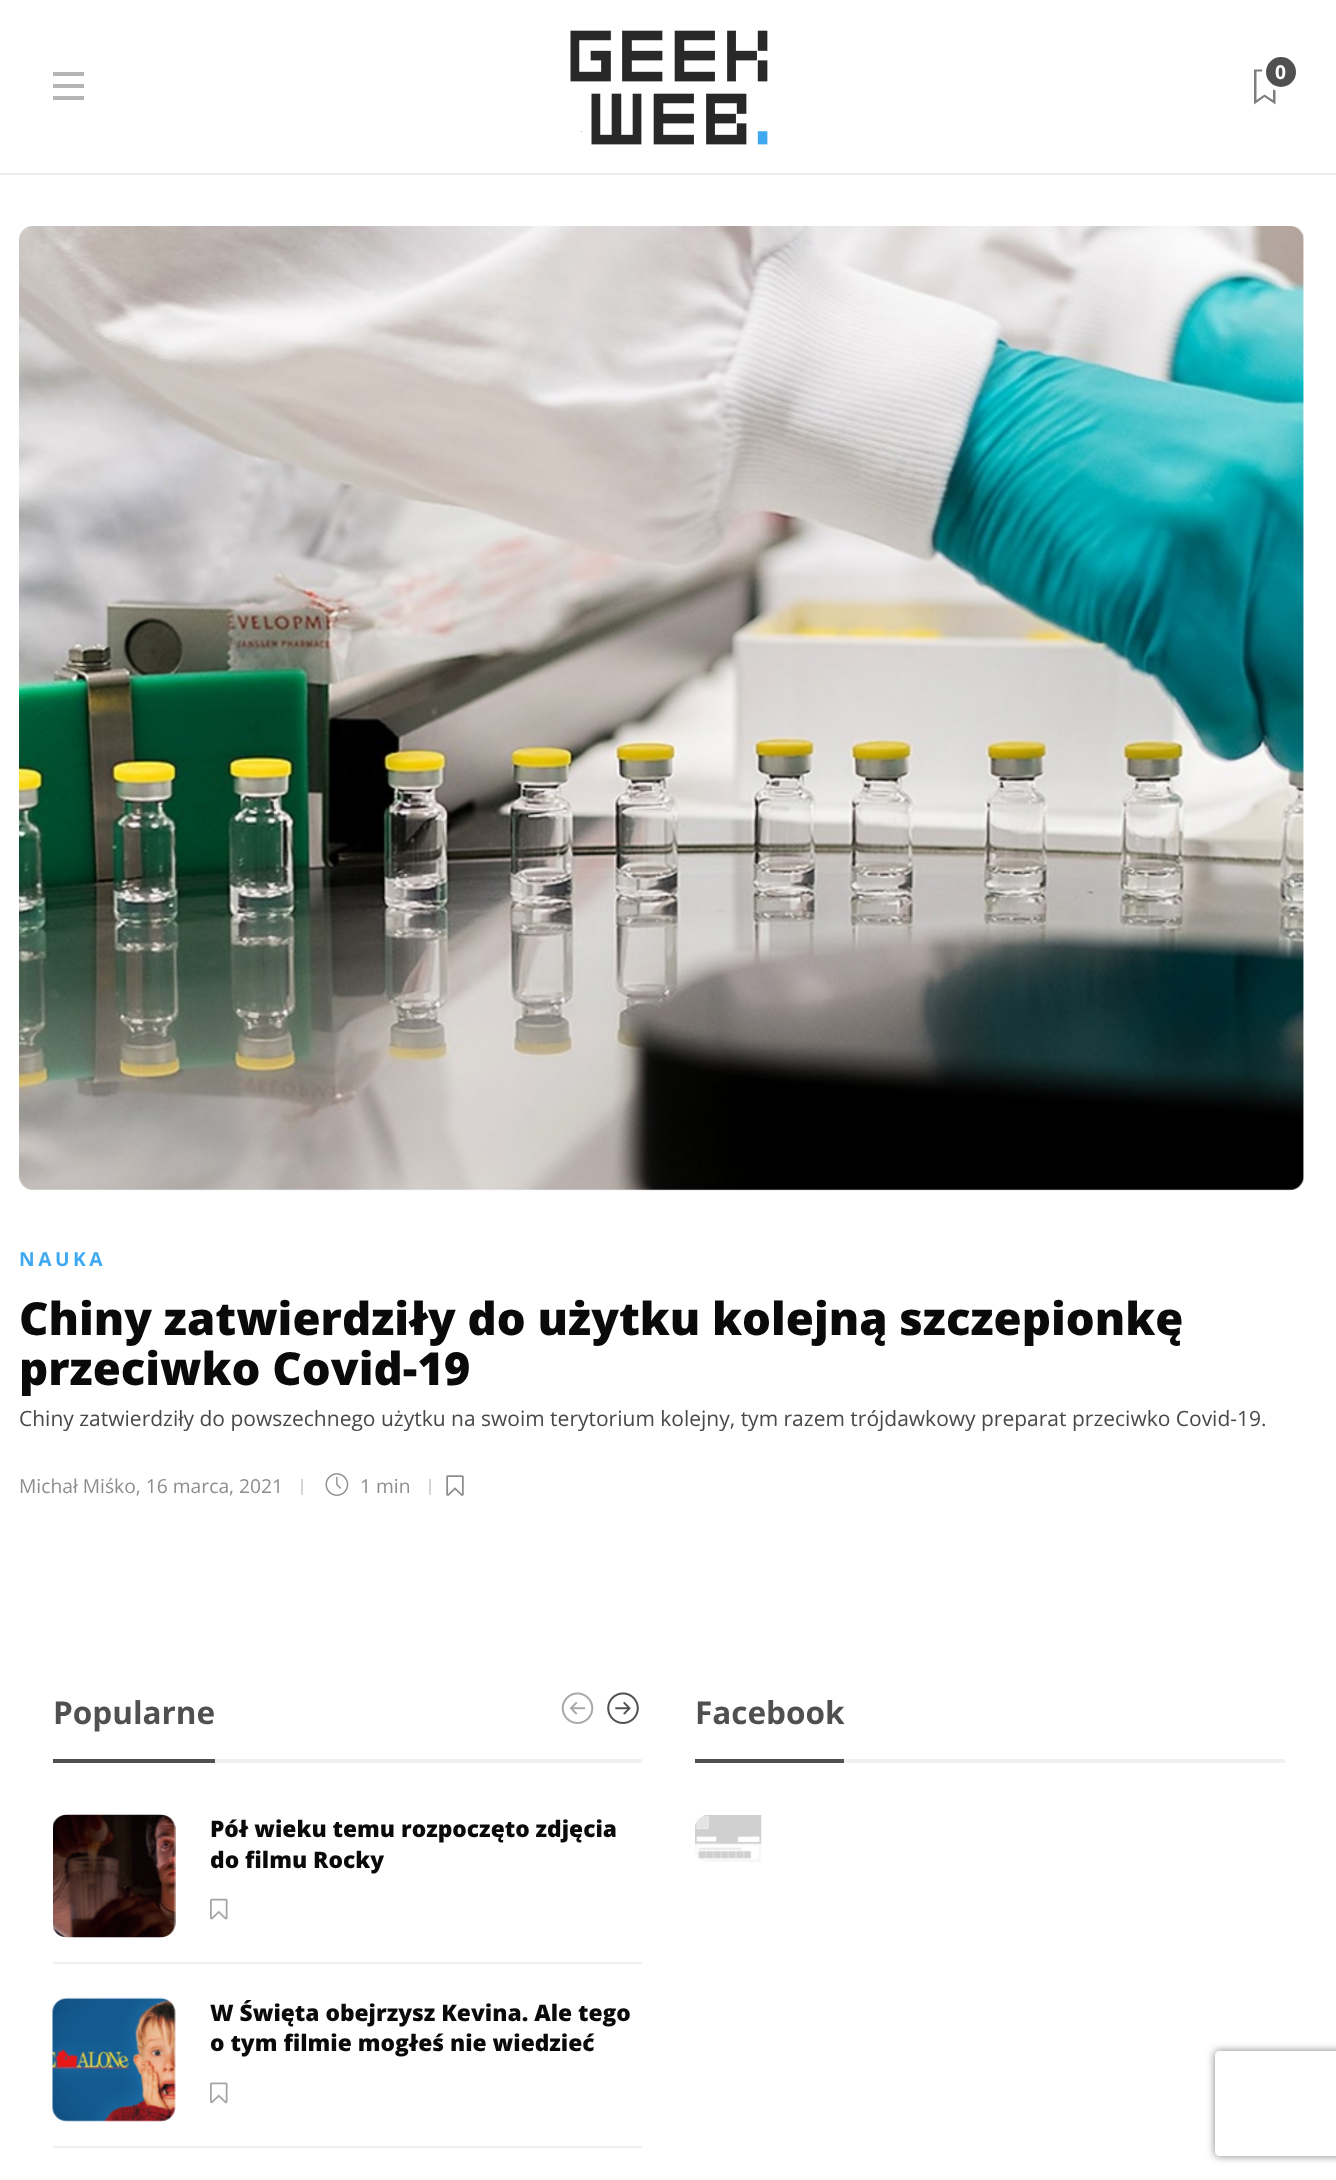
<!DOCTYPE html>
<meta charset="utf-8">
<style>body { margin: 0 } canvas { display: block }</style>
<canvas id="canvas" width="1336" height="2180"></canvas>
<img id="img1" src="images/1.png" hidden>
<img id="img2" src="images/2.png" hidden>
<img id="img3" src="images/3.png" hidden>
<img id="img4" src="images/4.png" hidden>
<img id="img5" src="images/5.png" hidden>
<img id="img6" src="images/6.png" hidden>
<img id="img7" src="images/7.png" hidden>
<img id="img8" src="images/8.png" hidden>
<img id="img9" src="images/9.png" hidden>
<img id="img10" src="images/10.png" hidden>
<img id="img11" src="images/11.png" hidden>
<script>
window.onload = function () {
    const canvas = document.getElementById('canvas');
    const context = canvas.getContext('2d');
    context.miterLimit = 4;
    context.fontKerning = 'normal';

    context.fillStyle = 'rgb(255, 255, 255)';
    context.fillRect(0, 0, 1336, 2180);
    context.fillStyle = 'rgb(237, 237, 237)';
    context.fillRect(0, 173, 1336, 2);
    context.fillStyle = 'rgb(181, 181, 181)';
    context.fillRect(53, 72, 31, 4);
    context.fillRect(53, 84, 31, 4);
    context.fillRect(53, 96, 31, 4);
    context.drawImage(document.getElementById('img1'), 570, 30, 198, 115);
    context.fillStyle = 'rgb(126, 126, 126)';
    context.beginPath();
    context.moveTo(1254, 69.5);
    context.lineTo(1254, 104.5);
    context.lineTo(1264.5, 97);
    context.lineTo(1275.5, 104.5);
    context.lineTo(1275.5, 69.5);
    context.closePath();
    context.moveTo(1273, 100);
    context.lineTo(1264.5, 94.5);
    context.lineTo(1256.5, 100);
    context.lineTo(1256.5, 71.5);
    context.lineTo(1273, 71.5);
    context.closePath();
    context.fill();
    context.fillStyle = 'rgb(80, 80, 80)';
    context.beginPath();
    context.arc(1281, 72, 17, 0, 2 * Math.PI);
    context.fill();
    context.strokeStyle = 'rgb(255, 255, 255)';
    context.lineWidth = 4;
    context.stroke();
    context.drawImage(document.getElementById('img2'), 19, 226, 1285, 965);
    context.fillStyle = 'rgb(214, 214, 214)';
    context.fillRect(301, 1479, 2, 16);
    context.drawImage(document.getElementById('img3'), 325, 1473, 24, 23);
    context.fillRect(429, 1479, 2, 16);
    context.drawImage(document.getElementById('img4'), 446, 1475, 18, 21);
    context.fillStyle = 'rgb(240, 240, 240)';
    context.fillRect(215, 1759, 427, 4);
    context.fillStyle = 'rgb(80, 80, 80)';
    context.fillRect(53, 1759, 162, 4);
    context.drawImage(document.getElementById('img5'), 561, 1692, 33, 32);
    context.drawImage(document.getElementById('img6'), 607, 1692, 32, 32);
    context.fillStyle = 'rgb(240, 240, 240)';
    context.fillRect(53, 1962, 589, 2);
    context.drawImage(document.getElementById('img7'), 53, 1814, 123, 124);
    context.drawImage(document.getElementById('img8'), 210, 1898, 18, 22);
    context.fillRect(53, 2146, 589, 2);
    context.drawImage(document.getElementById('img9'), 52, 1997, 124, 125);
    context.drawImage(document.getElementById('img10'), 210, 2082, 18, 22);
    context.fillRect(844, 1759, 441, 4);
    context.fillStyle = 'rgb(80, 80, 80)';
    context.fillRect(695, 1759, 149, 4);
    context.drawImage(document.getElementById('img11'), 695, 1815, 67, 47);
    context.save();
    context.beginPath();
    context.moveTo(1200, 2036);
    context.lineTo(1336, 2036);
    context.lineTo(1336, 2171);
    context.lineTo(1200, 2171);
    context.closePath();
    context.moveTo(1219, 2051);
    context.lineTo(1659, 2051);
    context.bezierCurveTo(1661, 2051, 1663, 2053, 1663, 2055);
    context.lineTo(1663, 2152);
    context.bezierCurveTo(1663, 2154, 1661, 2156, 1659, 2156);
    context.lineTo(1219, 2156);
    context.bezierCurveTo(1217, 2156, 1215, 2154, 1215, 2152);
    context.lineTo(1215, 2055);
    context.bezierCurveTo(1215, 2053, 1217, 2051, 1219, 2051);
    context.closePath();
    context.clip('evenodd');
    context.fillStyle = 'rgb(128, 128, 128)';
    context.filter = 'blur(4.5px)';
    context.beginPath();
    context.roundRect(1215, 2051, 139, 105, 4);
    context.fill();
    context.filter = 'none';
    context.restore();
    context.font = 'bold 19.25px Open Sans';
    context.fillStyle = 'rgb(255, 255, 255)';
    context.fillText('0', 1275, 79);
    context.letterSpacing = '3.5px';
    context.fillStyle = 'rgb(62, 169, 241)';
    context.fillText('NAUKA', 19, 1266);
    context.letterSpacing = '0px';
    context.font = '800 45.5px Open Sans';
    context.fillStyle = 'rgb(10, 10, 10)';
    context.fillText('Chiny zatwierdziły do użytku kolejną szczepionkę', 19, 1335);
    context.fillText('przeciwko Covid-19', 19, 1385);
    context.font = '21px Open Sans';
    context.fillStyle = 'rgb(73, 73, 73)';
    context.fillText('Chiny zatwierdziły do powszechnego użytku na swoim terytorium kolejny, tym razem trójdawkowy preparat przeciwko Covid-19.', 19, 1426);
    context.font = '19.25px Open Sans';
    context.fillStyle = 'rgb(141, 141, 141)';
    context.fillText('Michał Miśko, 16 marca, 2021', 19, 1493);
    context.fillText('1 min', 360, 1493);
    context.font = 'bold 31.5px Open Sans';
    context.fillStyle = 'rgb(80, 80, 80)';
    context.fillText('Popularne', 53, 1724);
    context.font = '800 22.75px Open Sans';
    context.fillStyle = 'rgb(10, 10, 10)';
    context.fillText('Pół wieku temu rozpoczęto zdjęcia', 210, 1837);
    context.fillText('do filmu Rocky', 210, 1868);
    context.fillText('W Święta obejrzysz Kevina. Ale tego', 210, 2021);
    context.fillText('o tym filmie mogłeś nie wiedzieć', 210, 2051);
    context.font = 'bold 31.5px Open Sans';
    context.fillStyle = 'rgb(80, 80, 80)';
    context.fillText('Facebook', 695, 1724);
};
</script>
